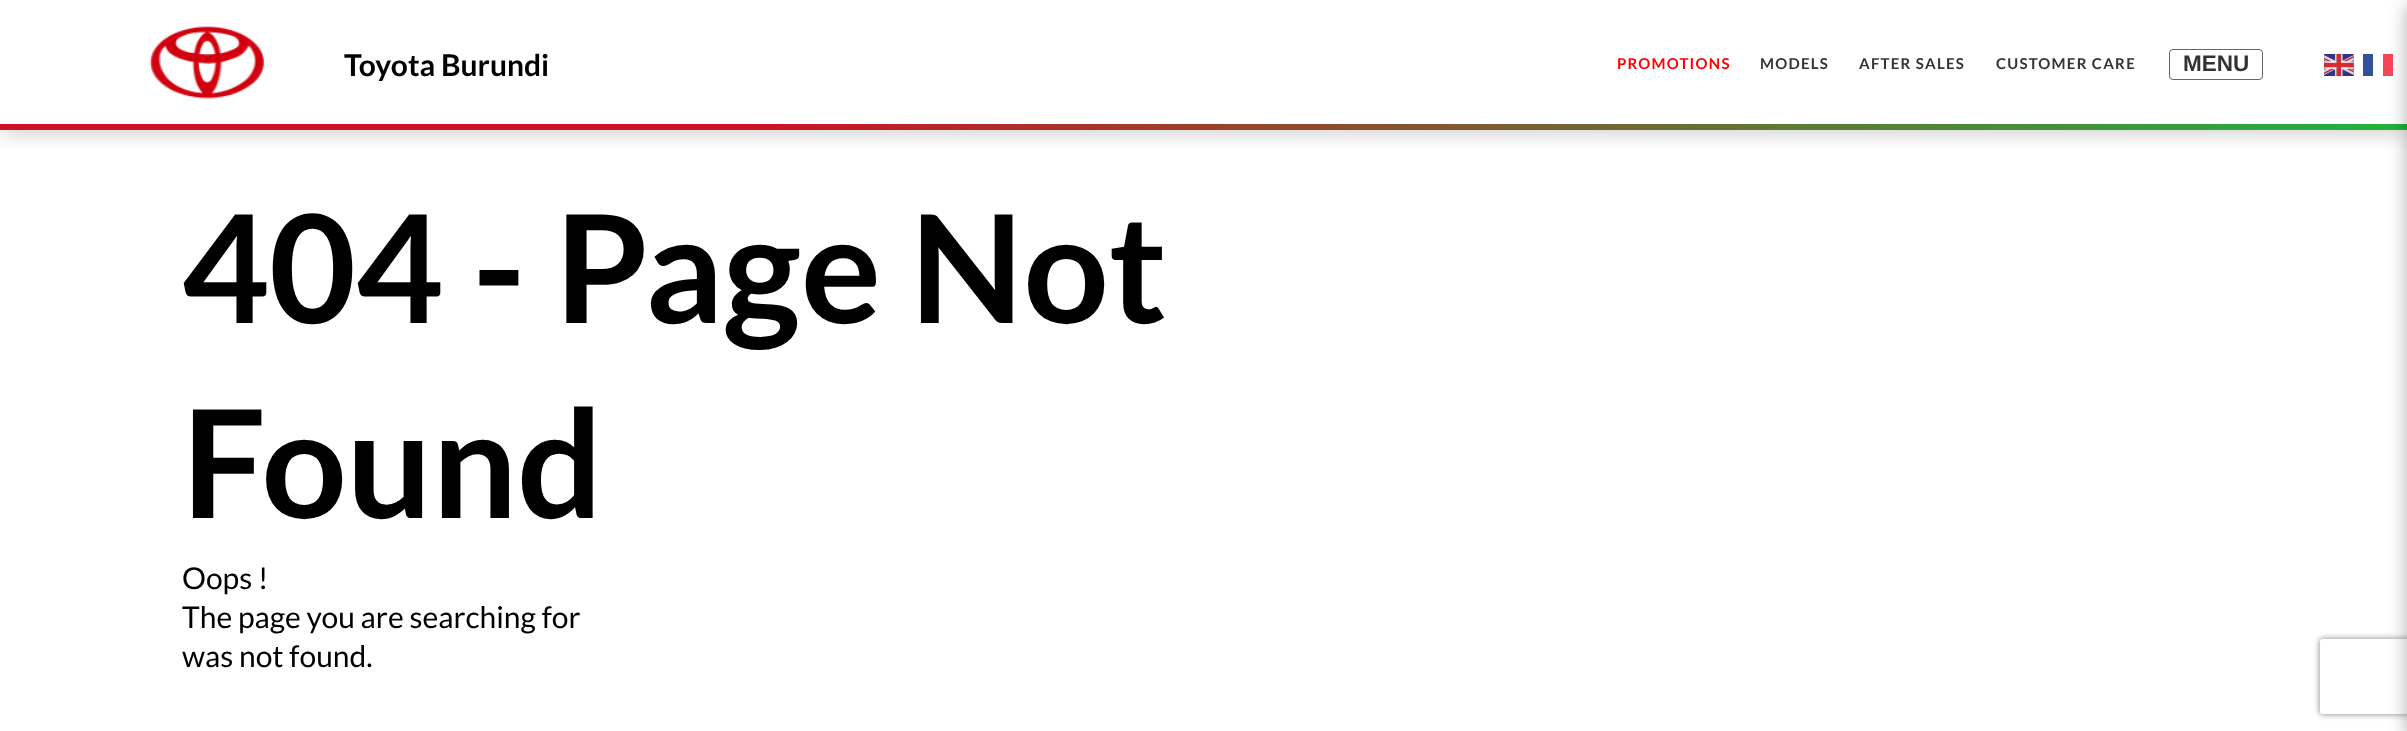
<!DOCTYPE html>
<meta charset="utf-8">
<style>body { margin: 0 } canvas { display: block }</style>
<canvas id="canvas" width="2407" height="731"></canvas>
<img id="img1" src="images/1.png" hidden>
<img id="img2" src="images/2.png" hidden>
<script>
window.onload = function () {
    const canvas = document.getElementById('canvas');
    const context = canvas.getContext('2d');
    context.miterLimit = 4;
    context.fontKerning = 'normal';
    let gradient;

    context.fillStyle = 'rgb(255, 255, 255)';
    context.fillRect(0, 0, 2407, 731);
    context.save();
    context.beginPath();
    context.rect(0, 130, 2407, 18);
    context.clip();
    context.fillStyle = 'rgba(0, 0, 0, 0.25)';
    context.filter = 'blur(12.5px)';
    context.beginPath();
    context.rect(0, 0, 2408, 130);
    context.fill();
    context.filter = 'none';
    context.restore();
    context.drawImage(document.getElementById('img1'), 149, 26, 116, 73);
    context.beginPath();
    context.roundRect(2169.5, 49.5, 93, 30, 3.5);
    context.strokeStyle = 'rgb(101, 101, 101)';
    context.stroke();
    gradient = context.createLinearGradient(600, 730, 1807, -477);
    gradient.addColorStop(0.3, 'rgb(206, 17, 38)');
    gradient.addColorStop(1, 'rgb(30, 181, 58)');
    context.fillStyle = gradient;
    context.fillRect(0, 124, 2407, 6);
    context.fillStyle = 'rgba(0, 0, 0, 0.35)';
    context.filter = 'blur(9.5px)';
    context.beginPath();
    context.rect(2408, 6, 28, 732);
    context.fill();
    context.filter = 'none';
    context.drawImage(document.getElementById('img2'), 2324, 53, 30, 24);
    context.fillStyle = 'rgb(51, 81, 153)';
    context.fillRect(2363, 54, 10, 22);
    context.fillStyle = 'rgb(245, 70, 89)';
    context.fillRect(2383, 54, 10, 22);
    context.save();
    context.beginPath();
    context.moveTo(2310, 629);
    context.lineTo(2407, 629);
    context.lineTo(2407, 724);
    context.lineTo(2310, 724);
    context.closePath();
    context.moveTo(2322.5, 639);
    context.lineTo(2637.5, 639);
    context.bezierCurveTo(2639, 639, 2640, 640, 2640, 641.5);
    context.lineTo(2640, 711.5);
    context.bezierCurveTo(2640, 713, 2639, 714, 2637.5, 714);
    context.lineTo(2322.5, 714);
    context.bezierCurveTo(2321, 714, 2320, 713, 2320, 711.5);
    context.lineTo(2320, 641.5);
    context.bezierCurveTo(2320, 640, 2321, 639, 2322.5, 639);
    context.closePath();
    context.clip('evenodd');
    context.fillStyle = 'rgb(128, 128, 128)';
    context.filter = 'blur(3px)';
    context.beginPath();
    context.roundRect(2320, 639, 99, 75, 2.5);
    context.fill();
    context.filter = 'none';
    context.restore();
    context.font = 'bold 30px Lato';
    context.fillStyle = 'rgb(0, 0, 0)';
    context.fillText('Toyota Burundi', 344, 76);
    context.letterSpacing = '1.25px';
    context.font = 'bold 15px Lato';
    context.fillStyle = 'rgb(255, 0, 0)';
    context.fillText('PROMOTIONS', 1617, 69);
    context.fillStyle = 'rgb(51, 51, 51)';
    context.fillText('MODELS', 1760, 69);
    context.fillText('AFTER SALES', 1859, 69);
    context.fillText('CUSTOMER CARE', 1996, 69);
    context.letterSpacing = '0px';
    context.font = 'bold 22.5px Liberation Sans';
    context.fillText('MENU', 2183, 71);
    context.font = 'bold 150px Lato';
    context.fillStyle = 'rgb(0, 0, 0)';
    context.fillText('404 - Page Not', 182, 323);
    context.fillText('Found', 182, 518);
    context.font = '30px Lato';
    context.fillText('Oops !', 182, 589);
    context.fillText('The page you are searching for', 182, 628);
    context.fillText('was not found.', 182, 667);
};
</script>
